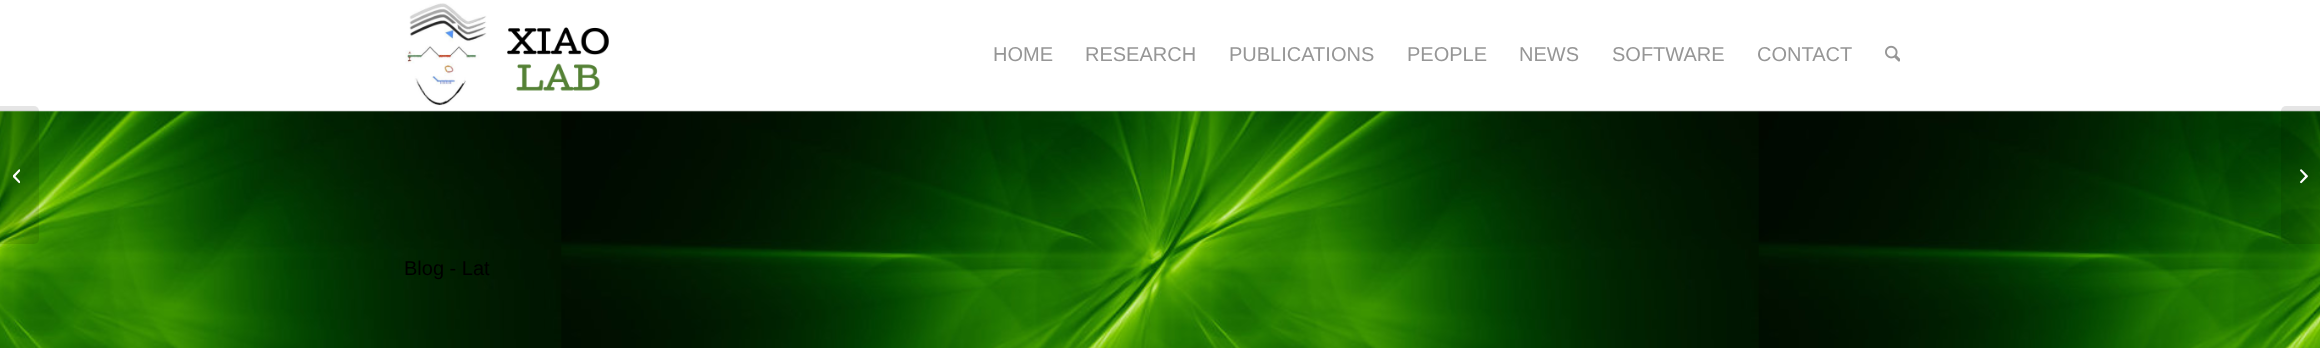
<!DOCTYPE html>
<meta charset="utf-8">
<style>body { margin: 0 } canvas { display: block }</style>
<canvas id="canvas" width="2320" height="348"></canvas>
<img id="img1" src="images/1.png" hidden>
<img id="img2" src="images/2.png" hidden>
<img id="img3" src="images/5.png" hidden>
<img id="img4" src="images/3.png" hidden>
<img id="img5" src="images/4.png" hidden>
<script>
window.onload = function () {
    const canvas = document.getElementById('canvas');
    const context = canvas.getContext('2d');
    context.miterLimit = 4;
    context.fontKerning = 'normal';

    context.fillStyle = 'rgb(255, 255, 255)';
    context.fillRect(0, 0, 2320, 348);
    context.fillStyle = 'rgb(235, 235, 235)';
    context.fillRect(0, 110, 2320, 1);
    context.drawImage(document.getElementById('img1'), 405, 3, 204, 103);
    context.drawImage(document.getElementById('img2'), 1885, 45, 15, 17);
    context.drawImage(document.getElementById('img3'), 0, 111, 2320, 237);
    context.fillStyle = 'rgba(0, 0, 0, 0.1)';
    context.beginPath();
    context.roundRect(0, 106, 39, 138, [0, 5, 5, 0]);
    context.fill();
    context.drawImage(document.getElementById('img4'), 13, 169, 7, 15);
    context.beginPath();
    context.roundRect(2281, 106, 39, 138, [5, 0, 0, 5]);
    context.fill();
    context.drawImage(document.getElementById('img5'), 2300, 169, 8, 15);
    context.font = '20px Liberation Sans';
    context.fillStyle = 'rgb(150, 150, 150)';
    context.fillText('HOME', 993, 61);
    context.fillText('RESEARCH', 1085, 61);
    context.fillText('PUBLICATIONS', 1229, 61);
    context.fillText('PEOPLE', 1407, 61);
    context.fillText('NEWS', 1519, 61);
    context.fillText('SOFTWARE', 1612, 61);
    context.fillText('CONTACT', 1757, 61);
    context.fillStyle = 'rgb(0, 0, 0)';
    context.fillText('Blog - Lat', 404, 275);
};
</script>
